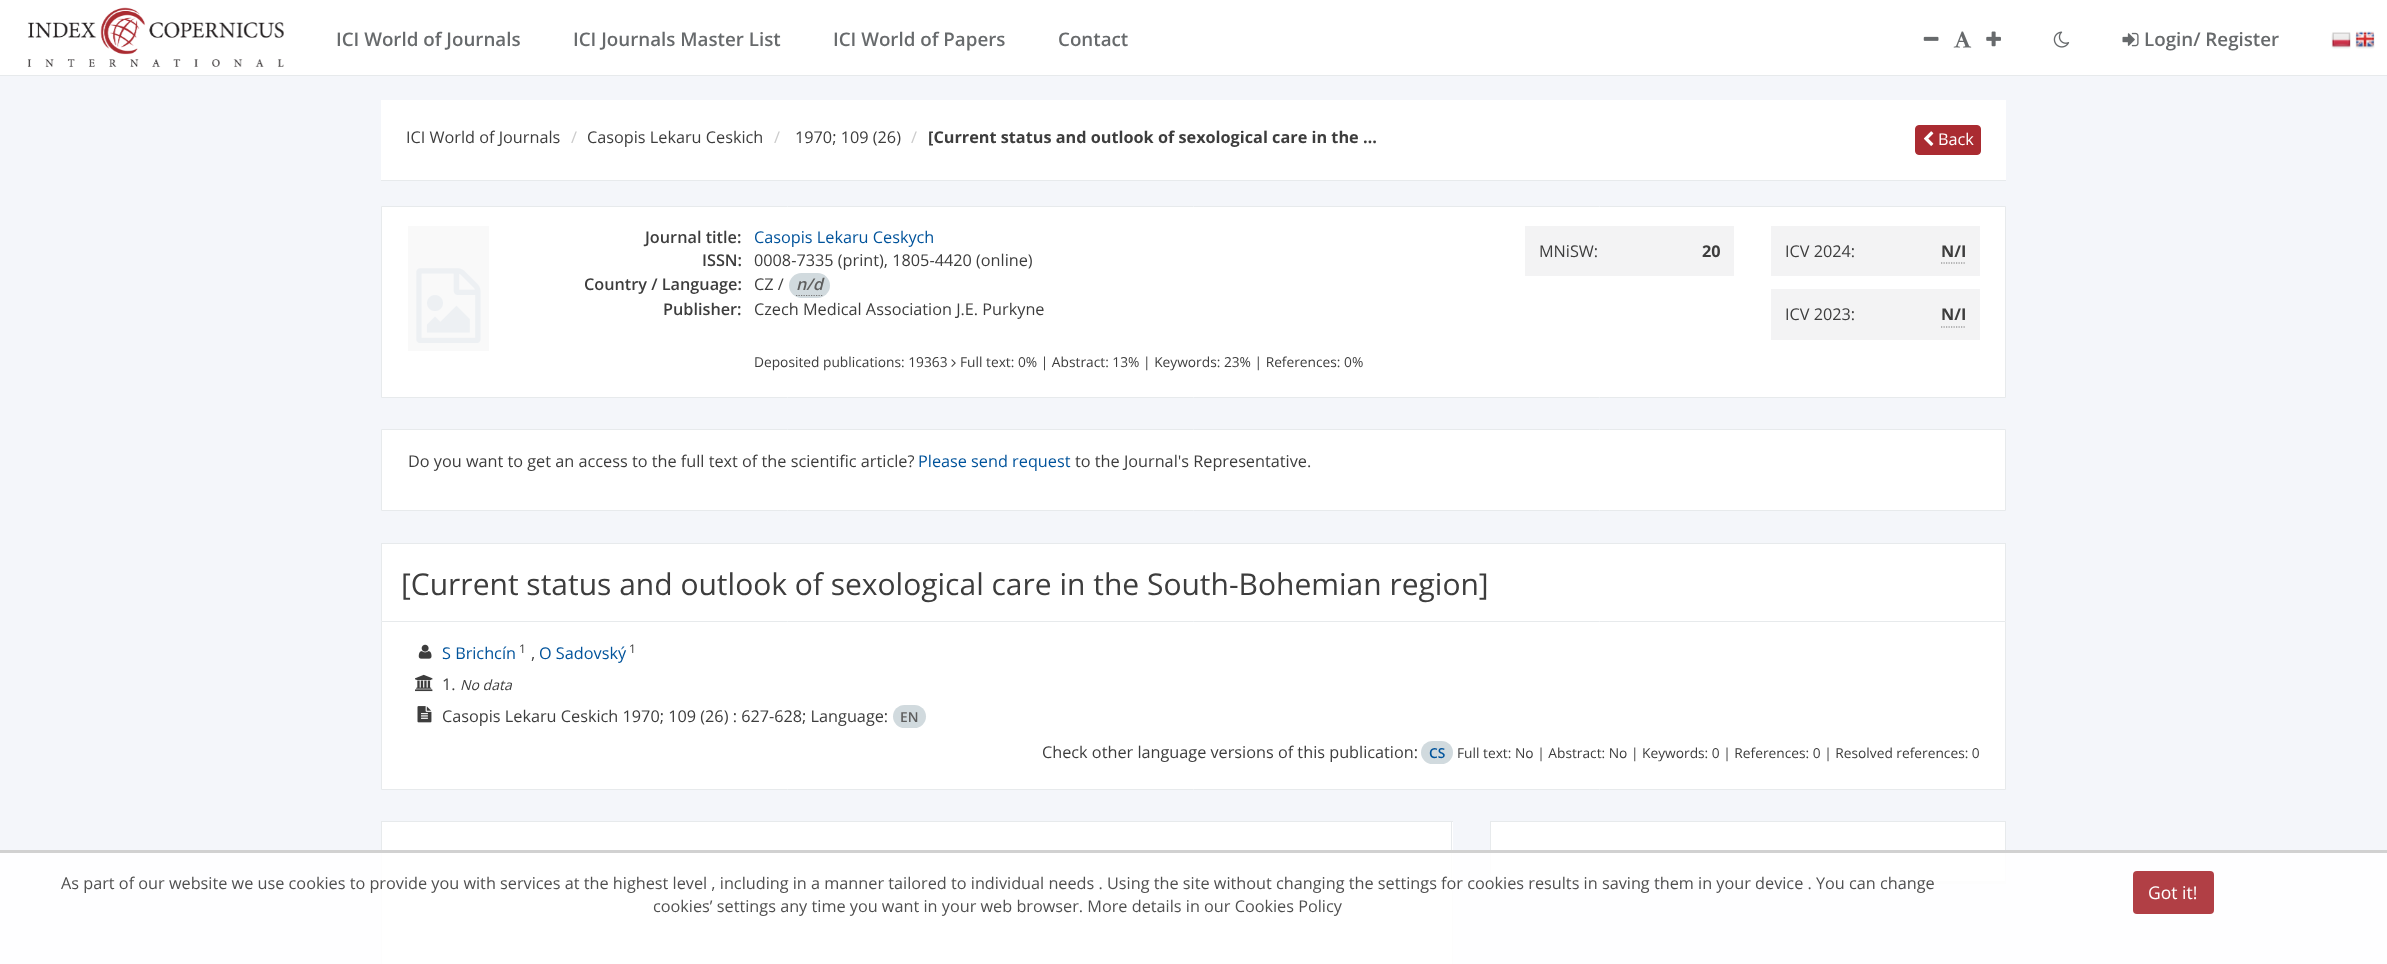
<!DOCTYPE html>
<meta charset="utf-8">
<style>body { margin: 0 } canvas { display: block }</style>
<canvas id="canvas" width="2387" height="964"></canvas>
<img id="img1" src="images/1.png" hidden>
<img id="img2" src="images/2.png" hidden>
<img id="img3" src="images/3.png" hidden>
<img id="img4" src="images/4.png" hidden>
<img id="img5" src="images/5.png" hidden>
<img id="img6" src="images/6.png" hidden>
<img id="img7" src="images/7.png" hidden>
<img id="img8" src="images/8.png" hidden>
<img id="img9" src="images/9.png" hidden>
<img id="img10" src="images/10.png" hidden>
<img id="img11" src="images/11.png" hidden>
<img id="img12" src="images/12.png" hidden>
<img id="img13" src="images/13.png" hidden>
<img id="img14" src="images/14.png" hidden>
<script>
window.onload = function () {
    const canvas = document.getElementById('canvas');
    const context = canvas.getContext('2d');
    context.miterLimit = 4;
    context.fontKerning = 'normal';

    context.fillStyle = 'rgb(244, 246, 250)';
    context.fillRect(0, 0, 2387, 964);
    context.fillStyle = 'rgb(255, 255, 255)';
    context.fillRect(0, 0, 2387, 75);
    context.fillStyle = 'rgb(231, 234, 236)';
    context.fillRect(0, 75, 2387, 1);
    context.drawImage(document.getElementById('img1'), 27, 7, 257, 60);
    context.drawImage(document.getElementById('img2'), 1923, 36, 16, 5);
    context.drawImage(document.getElementById('img3'), 1953, 31, 19, 17);
    context.drawImage(document.getElementById('img4'), 1986, 31, 15, 16);
    context.drawImage(document.getElementById('img5'), 2053, 31, 17, 17);
    context.drawImage(document.getElementById('img6'), 2122, 32, 17, 15);
    context.drawImage(document.getElementById('img7'), 2331, 32, 20, 17);
    context.drawImage(document.getElementById('img8'), 2355, 31, 20, 18);
    context.fillStyle = 'rgb(255, 255, 255)';
    context.fillRect(381, 100, 1625, 80);
    context.fillStyle = 'rgb(231, 234, 236)';
    context.fillRect(381, 180, 1625, 1);
    context.fillStyle = 'rgb(170, 43, 49)';
    context.beginPath();
    context.roundRect(1915.5, 125.5, 65, 29, 3.5);
    context.fill();
    context.strokeStyle = 'rgb(170, 43, 49)';
    context.stroke();
    context.drawImage(document.getElementById('img9'), 1923, 131, 11, 15);
    context.fillStyle = 'rgb(255, 255, 255)';
    context.beginPath();
    context.rect(381.5, 206.5, 1624, 191);
    context.fill();
    context.strokeStyle = 'rgb(231, 234, 236)';
    context.stroke();
    context.fillStyle = 'rgb(249, 249, 249)';
    context.fillRect(408, 226, 81, 125);
    context.drawImage(document.getElementById('img10'), 416, 268, 65, 75);
    context.fillStyle = 'rgb(209, 218, 222)';
    context.beginPath();
    context.roundRect(789, 273, 41, 25, 12.5);
    context.fill();
    context.beginPath();
    context.moveTo(796, 295.5);
    context.lineTo(822.5, 295.5);
    context.strokeStyle = 'rgb(119, 119, 119)';
    context.lineWidth = 1.2;
    context.setLineDash([1.25, 1.25]);
    context.stroke();
    context.fillStyle = 'rgb(243, 243, 244)';
    context.fillRect(1525, 226, 209, 50);
    context.fillRect(1771, 226, 209, 50);
    context.beginPath();
    context.moveTo(1941, 263);
    context.lineTo(1966, 263);
    context.stroke();
    context.fillRect(1771, 289, 209, 51);
    context.beginPath();
    context.moveTo(1941, 327);
    context.lineTo(1966, 327);
    context.stroke();
    context.drawImage(document.getElementById('img11'), 951, 359, 5, 8);
    context.fillStyle = 'rgb(255, 255, 255)';
    context.beginPath();
    context.rect(381.5, 429.5, 1624, 81);
    context.fill();
    context.strokeStyle = 'rgb(231, 234, 236)';
    context.lineWidth = 1;
    context.setLineDash([]);
    context.stroke();
    context.fillRect(382, 544, 1623, 77);
    context.fillStyle = 'rgb(231, 234, 236)';
    context.fillRect(381, 543, 1625, 1);
    context.fillRect(2005, 543, 1, 78);
    context.fillRect(381, 543, 1, 78);
    context.fillStyle = 'rgb(255, 255, 255)';
    context.beginPath();
    context.rect(381.5, 621.5, 1624, 168);
    context.fill();
    context.stroke();
    context.drawImage(document.getElementById('img12'), 418, 644, 14, 15);
    context.drawImage(document.getElementById('img13'), 415, 674, 18, 18);
    context.drawImage(document.getElementById('img14'), 417, 706, 15, 17);
    context.fillStyle = 'rgb(209, 218, 222)';
    context.beginPath();
    context.roundRect(893, 705, 33, 23, 11.5);
    context.fill();
    context.beginPath();
    context.roundRect(1421, 741, 32, 23, 11.5);
    context.fill();
    context.fillStyle = 'rgb(255, 255, 255)';
    context.fillRect(382, 822, 1071, 59);
    context.fillStyle = 'rgb(231, 234, 236)';
    context.fillRect(381, 821, 1072, 1);
    context.fillRect(1451, 821, 1, 60);
    context.fillRect(381, 821, 1, 60);
    context.fillStyle = 'rgb(255, 255, 255)';
    context.beginPath();
    context.rect(381.5, 881.5, 1071, 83);
    context.fill();
    context.stroke();
    context.fillRect(1491, 822, 514, 59);
    context.fillStyle = 'rgb(231, 234, 236)';
    context.fillRect(1490, 821, 516, 1);
    context.fillRect(2005, 821, 1, 60);
    context.fillRect(1490, 821, 1, 60);
    context.fillRect(1490, 881, 516, 3);
    context.fillStyle = 'rgba(255, 255, 255, 0.9)';
    context.fillRect(0, 850, 2387, 114);
    context.fillStyle = 'rgba(204, 204, 204, 0.9)';
    context.fillRect(0, 850, 2387, 3);
    context.fillStyle = 'rgb(177, 63, 69)';
    context.beginPath();
    context.roundRect(2133, 871, 81, 43, 4);
    context.fill();
    context.font = '600 18.75px Open Sans';
    context.fillStyle = 'rgb(103, 106, 108)';
    context.fillText('ICI World of Journals', 336, 46);
    context.fillText('ICI Journals Master List', 573, 46);
    context.fillText('ICI World of Papers', 833, 46);
    context.fillText('Contact', 1058, 46);
    context.fillText('Login/ Register', 2144, 46);
    context.font = '16.25px Open Sans';
    context.fillStyle = 'rgb(61, 61, 61)';
    context.fillText('ICI World of Journals', 406, 143);
    context.fillStyle = 'rgb(204, 204, 204)';
    context.fillText('/', 571, 143);
    context.fillStyle = 'rgb(61, 61, 61)';
    context.fillText('Casopis Lekaru Ceskich', 587, 143);
    context.fillStyle = 'rgb(204, 204, 204)';
    context.fillText('/', 774, 143);
    context.fillStyle = 'rgb(61, 61, 61)';
    context.fillText('1970; 109 (26)', 795, 143);
    context.fillStyle = 'rgb(204, 204, 204)';
    context.fillText('/', 911, 143);
    context.font = 'bold 16.25px Open Sans';
    context.fillStyle = 'rgb(61, 61, 61)';
    context.fillText('[Current status and outlook of sexological care in the …', 928, 143);
    context.font = '16.25px Open Sans';
    context.fillStyle = 'rgb(255, 255, 255)';
    context.fillText('Back', 1938, 145);
    context.font = '600 16.25px Open Sans';
    context.fillStyle = 'rgb(61, 61, 61)';
    context.fillText('Journal title:', 645, 243);
    context.font = '16.25px Open Sans';
    context.fillStyle = 'rgb(0, 83, 155)';
    context.fillText('Casopis Lekaru Ceskych', 754, 243);
    context.font = '600 16.25px Open Sans';
    context.fillStyle = 'rgb(61, 61, 61)';
    context.fillText('ISSN:', 702, 266);
    context.font = '16.25px Open Sans';
    context.fillText('0008-7335 (print), 1805-4420 (online)', 754, 266);
    context.font = '600 16.25px Open Sans';
    context.fillText('Country / Language:', 584, 290);
    context.font = '16.25px Open Sans';
    context.fillText('CZ /', 754, 290);
    context.font = 'italic 600 16.25px Open Sans';
    context.fillStyle = 'rgb(94, 94, 94)';
    context.fillText('n/d', 796, 290);
    context.font = '600 16.25px Open Sans';
    context.fillStyle = 'rgb(61, 61, 61)';
    context.fillText('Publisher:', 663, 315);
    context.font = '16.25px Open Sans';
    context.fillText('Czech Medical Association J.E. Purkyne', 754, 315);
    context.fillText('MNiSW:', 1539, 257);
    context.font = 'bold 16.25px Open Sans';
    context.fillText('20', 1702, 257);
    context.font = '16.25px Open Sans';
    context.fillText('ICV 2024:', 1785, 257);
    context.font = 'bold 16.25px Open Sans';
    context.fillText('N/I', 1941, 257);
    context.font = '16.25px Open Sans';
    context.fillText('ICV 2023:', 1785, 320);
    context.font = 'bold 16.25px Open Sans';
    context.fillText('N/I', 1941, 320);
    context.font = '13.75px Open Sans';
    context.fillText('Deposited publications: 19363', 754, 367);
    context.fillText('Full text: 0% | Abstract: 13% | Keywords: 23% | References: 0%', 960, 367);
    context.font = '16.25px Open Sans';
    context.fillText('Do you want to get an access to the full text of the scientific article?', 408, 467);
    context.fillStyle = 'rgb(0, 83, 155)';
    context.fillText('Please send request', 918, 467);
    context.fillStyle = 'rgb(61, 61, 61)';
    context.fillText('to the Journal\'s Representative.', 1075, 467);
    context.font = '30px Open Sans';
    context.fillText('[Current status and outlook of sexological care in the South-Bohemian region]', 401, 595);
    context.font = '16.25px Open Sans';
    context.fillStyle = 'rgb(0, 83, 155)';
    context.fillText('S Brichcín', 442, 659);
    context.font = '12px Open Sans';
    context.fillStyle = 'rgb(61, 61, 61)';
    context.fillText('1', 519, 653);
    context.font = '16.25px Open Sans';
    context.fillText(',', 531, 659);
    context.fillStyle = 'rgb(0, 83, 155)';
    context.fillText('O Sadovský', 539, 659);
    context.font = '12px Open Sans';
    context.fillStyle = 'rgb(61, 61, 61)';
    context.fillText('1', 629, 653);
    context.font = '16.25px Open Sans';
    context.fillText('1.', 442, 690);
    context.font = 'italic 14px Open Sans';
    context.fillText('No data', 460, 690);
    context.font = '16.25px Open Sans';
    context.fillText('Casopis Lekaru Ceskich 1970; 109 (26) : 627-628; Language:', 442, 722);
    context.font = '600 13.75px Open Sans';
    context.fillStyle = 'rgb(94, 94, 94)';
    context.fillText('EN', 900, 722);
    context.font = '16.25px Open Sans';
    context.fillStyle = 'rgb(61, 61, 61)';
    context.fillText('Check other language versions of this publication:', 1042, 758);
    context.font = '600 13.75px Open Sans';
    context.fillStyle = 'rgb(0, 83, 155)';
    context.fillText('CS', 1429, 758);
    context.font = '13.75px Open Sans';
    context.fillStyle = 'rgb(61, 61, 61)';
    context.fillText('Full text: No | Abstract: No | Keywords: 0 | References: 0 | Resolved references: 0', 1457, 758);
    context.font = '16.25px Open Sans';
    context.fillStyle = 'rgb(80, 80, 80)';
    context.fillText('As part of our website we use cookies to provide you with services at the highest level , including in a manner tailored to individual needs . Using the site without changing the settings for cookies results in saving them in your device . You can change', 61, 889);
    context.fillText('cookies’ settings any time you want in your web browser. More details in our Cookies Policy', 653, 912);
    context.font = '17.5px Open Sans';
    context.fillStyle = 'rgb(255, 255, 255)';
    context.fillText('Got it!', 2148, 899);
};
</script>
